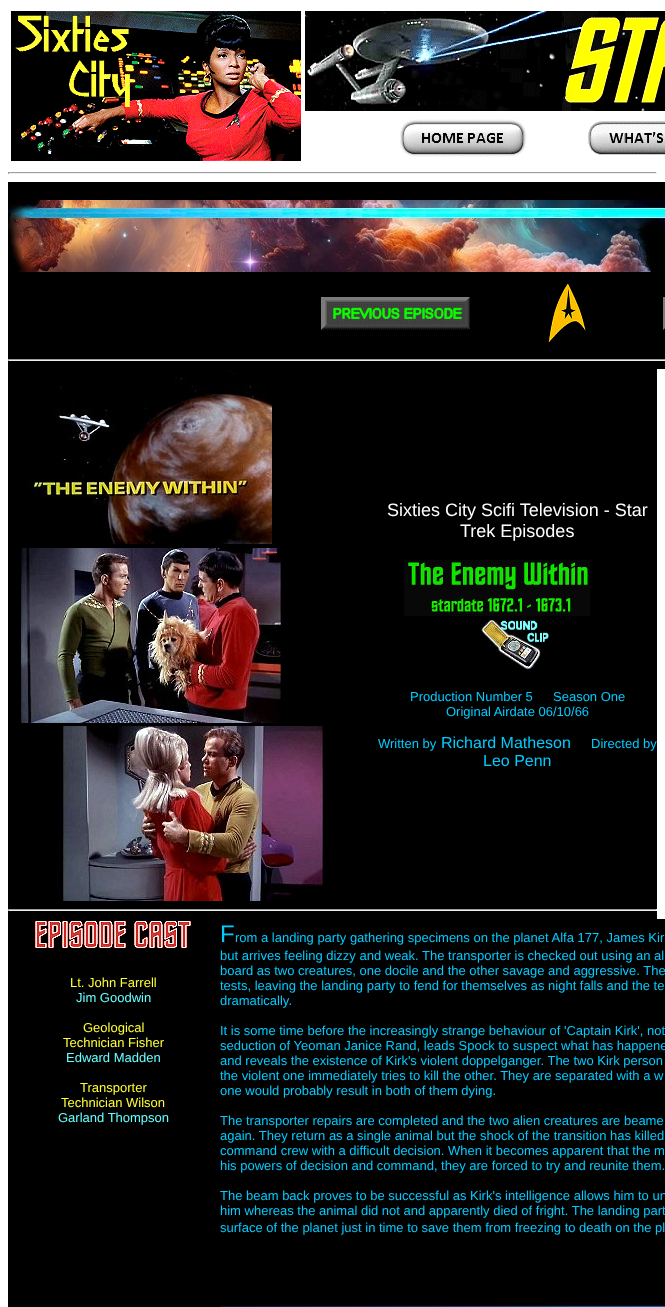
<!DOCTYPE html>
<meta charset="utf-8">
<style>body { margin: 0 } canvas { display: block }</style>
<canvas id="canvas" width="665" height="1307"></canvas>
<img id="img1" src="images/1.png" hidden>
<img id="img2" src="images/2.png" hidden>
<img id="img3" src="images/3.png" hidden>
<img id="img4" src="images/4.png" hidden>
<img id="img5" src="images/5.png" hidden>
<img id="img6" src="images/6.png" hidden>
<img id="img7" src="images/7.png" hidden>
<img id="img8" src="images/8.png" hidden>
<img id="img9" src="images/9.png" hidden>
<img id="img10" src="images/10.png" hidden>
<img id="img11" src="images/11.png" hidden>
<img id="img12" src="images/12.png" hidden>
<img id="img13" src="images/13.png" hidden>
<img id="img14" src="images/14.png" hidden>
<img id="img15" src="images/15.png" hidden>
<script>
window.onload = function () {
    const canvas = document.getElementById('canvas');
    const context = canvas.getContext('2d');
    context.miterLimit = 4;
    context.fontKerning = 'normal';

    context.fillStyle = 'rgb(255, 255, 255)';
    context.fillRect(0, 0, 665, 1307);
    context.drawImage(document.getElementById('img1'), 11, 11, 290, 150);
    context.drawImage(document.getElementById('img2'), 305, 11, 360, 100);
    context.drawImage(document.getElementById('img3'), 400, 119, 127, 38);
    context.drawImage(document.getElementById('img4'), 588, 121, 77, 34);
    context.fillStyle = 'rgb(159, 159, 159)';
    context.fillRect(8, 172, 649, 1);
    context.fillStyle = 'rgb(238, 238, 238)';
    context.fillRect(656, 172, 1, 2);
    context.fillRect(8, 173, 649, 1);
    context.fillStyle = 'rgb(159, 159, 159)';
    context.fillRect(8, 172, 1, 2);
    context.fillStyle = 'rgb(0, 0, 0)';
    context.fillRect(8, 182, 657, 187);
    context.drawImage(document.getElementById('img5'), 8, 200, 657, 72);
    context.drawImage(document.getElementById('img6'), 321, 297, 149, 33);
    context.drawImage(document.getElementById('img7'), 548, 283, 39, 60);
    context.drawImage(document.getElementById('img8'), 663, 297, 2, 33);
    context.fillStyle = 'rgb(159, 159, 159)';
    context.fillRect(8, 359, 657, 1);
    context.fillStyle = 'rgb(238, 238, 238)';
    context.fillRect(8, 360, 657, 1);
    context.fillStyle = 'rgb(159, 159, 159)';
    context.fillRect(8, 359, 1, 2);
    context.fillStyle = 'rgb(0, 0, 0)';
    context.fillRect(8, 369, 649, 550);
    context.drawImage(document.getElementById('img9'), 28, 370, 244, 174);
    context.drawImage(document.getElementById('img10'), 21, 548, 260, 175);
    context.drawImage(document.getElementById('img11'), 63, 726, 260, 175);
    context.drawImage(document.getElementById('img12'), 404, 560, 186, 56);
    context.drawImage(document.getElementById('img13'), 481, 620, 68, 50);
    context.fillStyle = 'rgb(159, 159, 159)';
    context.fillRect(8, 909, 649, 1);
    context.fillStyle = 'rgb(238, 238, 238)';
    context.fillRect(656, 909, 1, 2);
    context.fillRect(8, 910, 649, 1);
    context.fillStyle = 'rgb(159, 159, 159)';
    context.fillRect(8, 909, 1, 2);
    context.fillStyle = 'rgb(0, 0, 0)';
    context.fillRect(8, 919, 657, 388);
    context.drawImage(document.getElementById('img14'), 35, 920, 156, 28);
    context.drawImage(document.getElementById('img15'), 220, 1302, 445, 5);
    context.font = '18px Liberation Sans';
    context.fillStyle = 'rgb(255, 255, 255)';
    context.fillText('Sixties City Scifi Television - Star', 387, 516);
    context.fillText('Trek Episodes', 460, 537);
    context.font = '13px Liberation Sans';
    context.fillStyle = 'rgb(0, 204, 255)';
    context.fillText('Production Number 5', 410, 701);
    context.fillText('Season One', 553, 701);
    context.fillText('Original Airdate 06/10/66', 446, 716);
    context.fillText('Written by', 378, 748);
    context.font = '16px Liberation Sans';
    context.fillText('Richard Matheson', 441, 748);
    context.font = '13px Liberation Sans';
    context.fillText('Directed by', 591, 748);
    context.font = '16px Liberation Sans';
    context.fillText('Leo Penn', 483, 766);
    context.font = '13px Liberation Sans';
    context.fillStyle = 'rgb(255, 255, 51)';
    context.fillText('Lt. John Farrell', 70, 987);
    context.fillStyle = 'rgb(102, 255, 255)';
    context.fillText('Jim Goodwin', 76, 1002);
    context.fillStyle = 'rgb(255, 255, 51)';
    context.fillText('Geological', 83, 1032);
    context.fillText('Technician Fisher', 63, 1047);
    context.fillStyle = 'rgb(102, 255, 255)';
    context.fillText('Edward Madden', 66, 1062);
    context.fillStyle = 'rgb(255, 255, 51)';
    context.fillText('Transporter', 80, 1092);
    context.fillText('Technician Wilson', 61, 1107);
    context.fillStyle = 'rgb(102, 255, 255)';
    context.fillText('Garland Thompson', 58, 1122);
    context.font = '24px Liberation Sans';
    context.fillStyle = 'rgb(0, 204, 255)';
    context.fillText('F', 220, 942);
    context.font = '13px Liberation Sans';
    context.fillText('rom a landing party gathering specimens on the planet Alfa 177, James Kir', 235, 942);
    context.fillText('but arrives feeling dizzy and weak. The transporter is checked out using an al', 220, 960);
    context.fillText('board as two creatures, one docile and the other savage and aggressive. The', 220, 975);
    context.fillText('tests, leaving the landing party to fend for themselves as night falls and the te', 220, 990);
    context.fillText('dramatically.', 220, 1005);
    context.fillText('It is some time before the increasingly strange behaviour of \'Captain Kirk\', not', 220, 1035);
    context.fillText('seduction of Yeoman Janice Rand, leads Spock to suspect what has happene', 220, 1050);
    context.fillText('and reveals the existence of Kirk\'s violent doppelganger. The two Kirk person', 220, 1065);
    context.fillText('the violent one immediately tries to kill the other. They are separated with a w', 220, 1080);
    context.fillText('one would probably result in both of them dying.', 220, 1095);
    context.fillText('The transporter repairs are completed and the two alien creatures are beame', 220, 1125);
    context.fillText('again. They return as a single animal but the shock of the transition has killed', 220, 1140);
    context.fillText('command crew with a difficult decision. When it becomes apparent that the m', 220, 1155);
    context.fillText('his powers of decision and command, they are forced to try and reunite them.', 220, 1170);
    context.fillText('The beam back proves to be successful as Kirk\'s intelligence allows him to un', 220, 1200);
    context.fillText('him whereas the animal did not and apparently died of fright. The landing part', 220, 1215);
    context.fillText('surface of the planet just in time to save them from freezing to death on the pl', 220, 1232);
};
</script>
